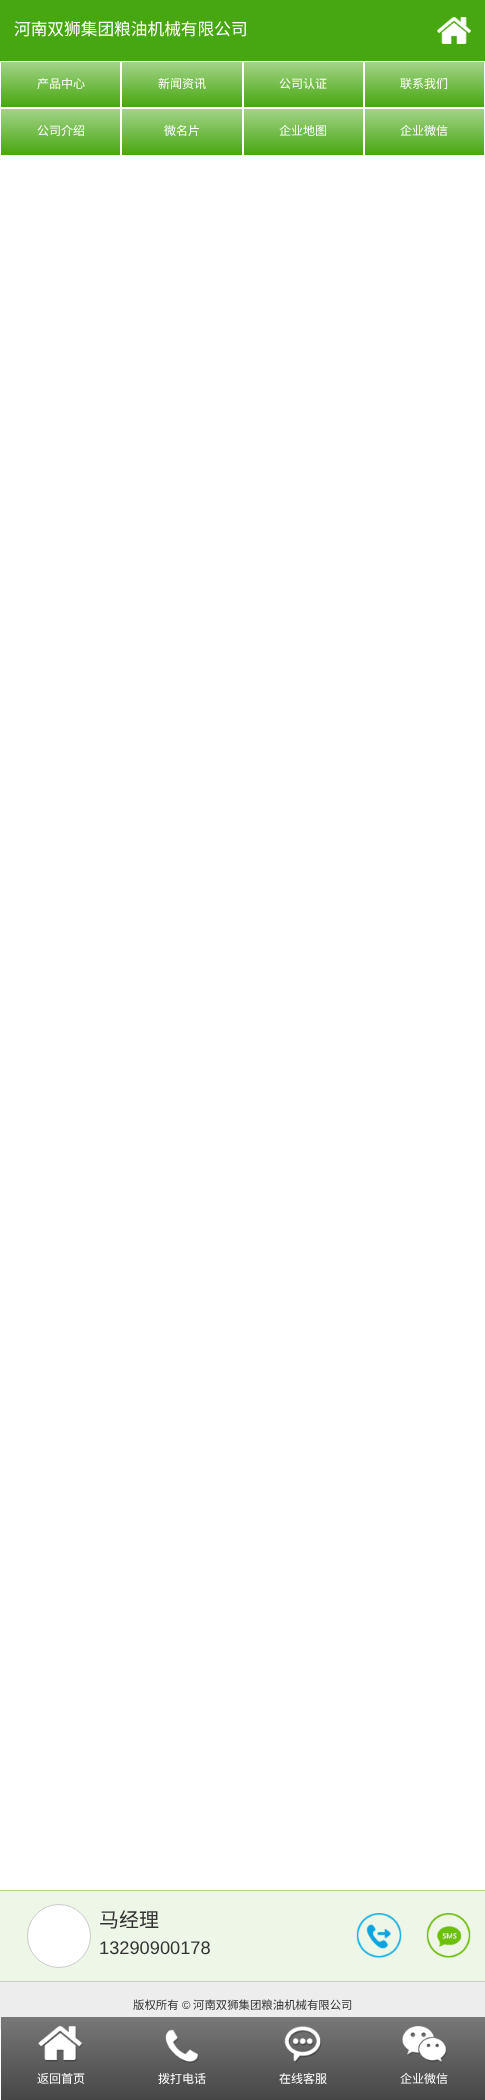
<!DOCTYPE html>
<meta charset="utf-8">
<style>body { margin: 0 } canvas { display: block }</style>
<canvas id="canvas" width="485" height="2100"></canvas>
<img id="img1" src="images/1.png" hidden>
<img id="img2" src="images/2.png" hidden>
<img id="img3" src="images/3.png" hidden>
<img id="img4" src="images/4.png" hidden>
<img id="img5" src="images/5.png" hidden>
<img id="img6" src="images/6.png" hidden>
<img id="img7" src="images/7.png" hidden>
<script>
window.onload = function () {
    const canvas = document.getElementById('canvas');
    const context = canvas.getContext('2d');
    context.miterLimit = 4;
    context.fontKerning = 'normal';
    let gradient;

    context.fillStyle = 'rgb(255, 255, 255)';
    context.fillRect(0, 0, 485, 2100);
    context.fillStyle = 'rgb(71, 167, 16)';
    context.fillRect(0, 0, 485, 61);
    context.drawImage(document.getElementById('img1'), 437, 17, 34, 27);
    gradient = context.createLinearGradient(61, 62, 61, 107);
    gradient.addColorStop(0, 'rgb(163, 211, 136)');
    gradient.addColorStop(1, 'rgb(71, 167, 16)');
    context.fillStyle = gradient;
    context.fillRect(1, 62, 119, 45);
    gradient = context.createLinearGradient(182, 62, 182, 107);
    gradient.addColorStop(0, 'rgb(163, 211, 136)');
    gradient.addColorStop(1, 'rgb(71, 167, 16)');
    context.fillStyle = gradient;
    context.fillRect(122, 62, 120, 45);
    gradient = context.createLinearGradient(304, 62, 304, 107);
    gradient.addColorStop(0, 'rgb(163, 211, 136)');
    gradient.addColorStop(1, 'rgb(71, 167, 16)');
    context.fillStyle = gradient;
    context.fillRect(244, 62, 119, 45);
    gradient = context.createLinearGradient(425, 62, 425, 107);
    gradient.addColorStop(0, 'rgb(163, 211, 136)');
    gradient.addColorStop(1, 'rgb(71, 167, 16)');
    context.fillStyle = gradient;
    context.fillRect(365, 62, 119, 45);
    gradient = context.createLinearGradient(61, 109, 61, 155);
    gradient.addColorStop(0, 'rgb(163, 211, 136)');
    gradient.addColorStop(1, 'rgb(71, 167, 16)');
    context.fillStyle = gradient;
    context.fillRect(1, 109, 119, 46);
    gradient = context.createLinearGradient(182, 109, 182, 155);
    gradient.addColorStop(0, 'rgb(163, 211, 136)');
    gradient.addColorStop(1, 'rgb(71, 167, 16)');
    context.fillStyle = gradient;
    context.fillRect(122, 109, 120, 46);
    gradient = context.createLinearGradient(304, 109, 304, 155);
    gradient.addColorStop(0, 'rgb(163, 211, 136)');
    gradient.addColorStop(1, 'rgb(71, 167, 16)');
    context.fillStyle = gradient;
    context.fillRect(244, 109, 119, 46);
    gradient = context.createLinearGradient(425, 109, 425, 155);
    gradient.addColorStop(0, 'rgb(163, 211, 136)');
    gradient.addColorStop(1, 'rgb(71, 167, 16)');
    context.fillStyle = gradient;
    context.fillRect(365, 109, 119, 46);
    context.fillStyle = 'rgb(237, 246, 231)';
    context.fillRect(0, 1891, 485, 90);
    context.fillStyle = 'rgb(171, 214, 145)';
    context.fillRect(0, 1890, 485, 1);
    context.fillStyle = 'rgb(255, 255, 255)';
    context.beginPath();
    context.arc(59, 1936, 31.5, 0, 2 * Math.PI);
    context.fill();
    context.strokeStyle = 'rgb(203, 203, 203)';
    context.stroke();
    context.drawImage(document.getElementById('img2'), 356, 1913, 46, 45);
    context.drawImage(document.getElementById('img3'), 426, 1913, 45, 45);
    context.fillStyle = 'rgb(237, 237, 237)';
    context.fillRect(0, 1982, 485, 47);
    context.fillStyle = 'rgb(203, 203, 203)';
    context.fillRect(0, 1981, 485, 1);
    gradient = context.createLinearGradient(243, 2017, 243, 2100);
    gradient.addColorStop(0, 'rgb(120, 120, 120)');
    gradient.addColorStop(1, 'rgb(70, 70, 70)');
    context.fillStyle = gradient;
    context.fillRect(1, 2017, 484, 83);
    context.drawImage(document.getElementById('img4'), 38, 2026, 45, 36);
    context.drawImage(document.getElementById('img5'), 165, 2029, 34, 34);
    context.drawImage(document.getElementById('img6'), 284, 2026, 38, 37);
    context.drawImage(document.getElementById('img7'), 402, 2026, 45, 37);
    context.font = '16.7px Noto Sans CJK SC';
    context.fillStyle = 'rgb(255, 255, 255)';
    context.fillText('河南双狮集团粮油机械有限公司', 14, 35);
    context.font = '12px Noto Sans CJK SC';
    context.fillText('产品中心', 37, 88);
    context.fillText('新闻资讯', 158, 88);
    context.fillText('公司认证', 279, 88);
    context.fillText('联系我们', 400, 88);
    context.fillText('公司介绍', 37, 135);
    context.fillText('微名片', 164, 135);
    context.fillText('企业地图', 279, 135);
    context.fillText('企业微信', 400, 135);
    context.font = '20px Noto Sans CJK SC';
    context.fillStyle = 'rgb(51, 51, 51)';
    context.fillText('马经理', 99, 1927);
    context.font = '18.25px Liberation Sans';
    context.fillText('13290900178', 99, 1954);
    context.font = '11.4px Noto Sans CJK SC';
    context.fillText('版权所有', 133, 2009);
    context.font = '11.4px Liberation Sans';
    context.fillText('©', 182, 2009);
    context.font = '11.4px Noto Sans CJK SC';
    context.fillText('河南双狮集团粮油机械有限公司', 193, 2009);
    context.font = '12px Noto Sans CJK SC';
    context.fillStyle = 'rgb(255, 255, 255)';
    context.fillText('返回首页', 37, 2083);
    context.fillText('拨打电话', 158, 2083);
    context.fillText('在线客服', 279, 2083);
    context.fillText('企业微信', 400, 2083);
};
</script>
